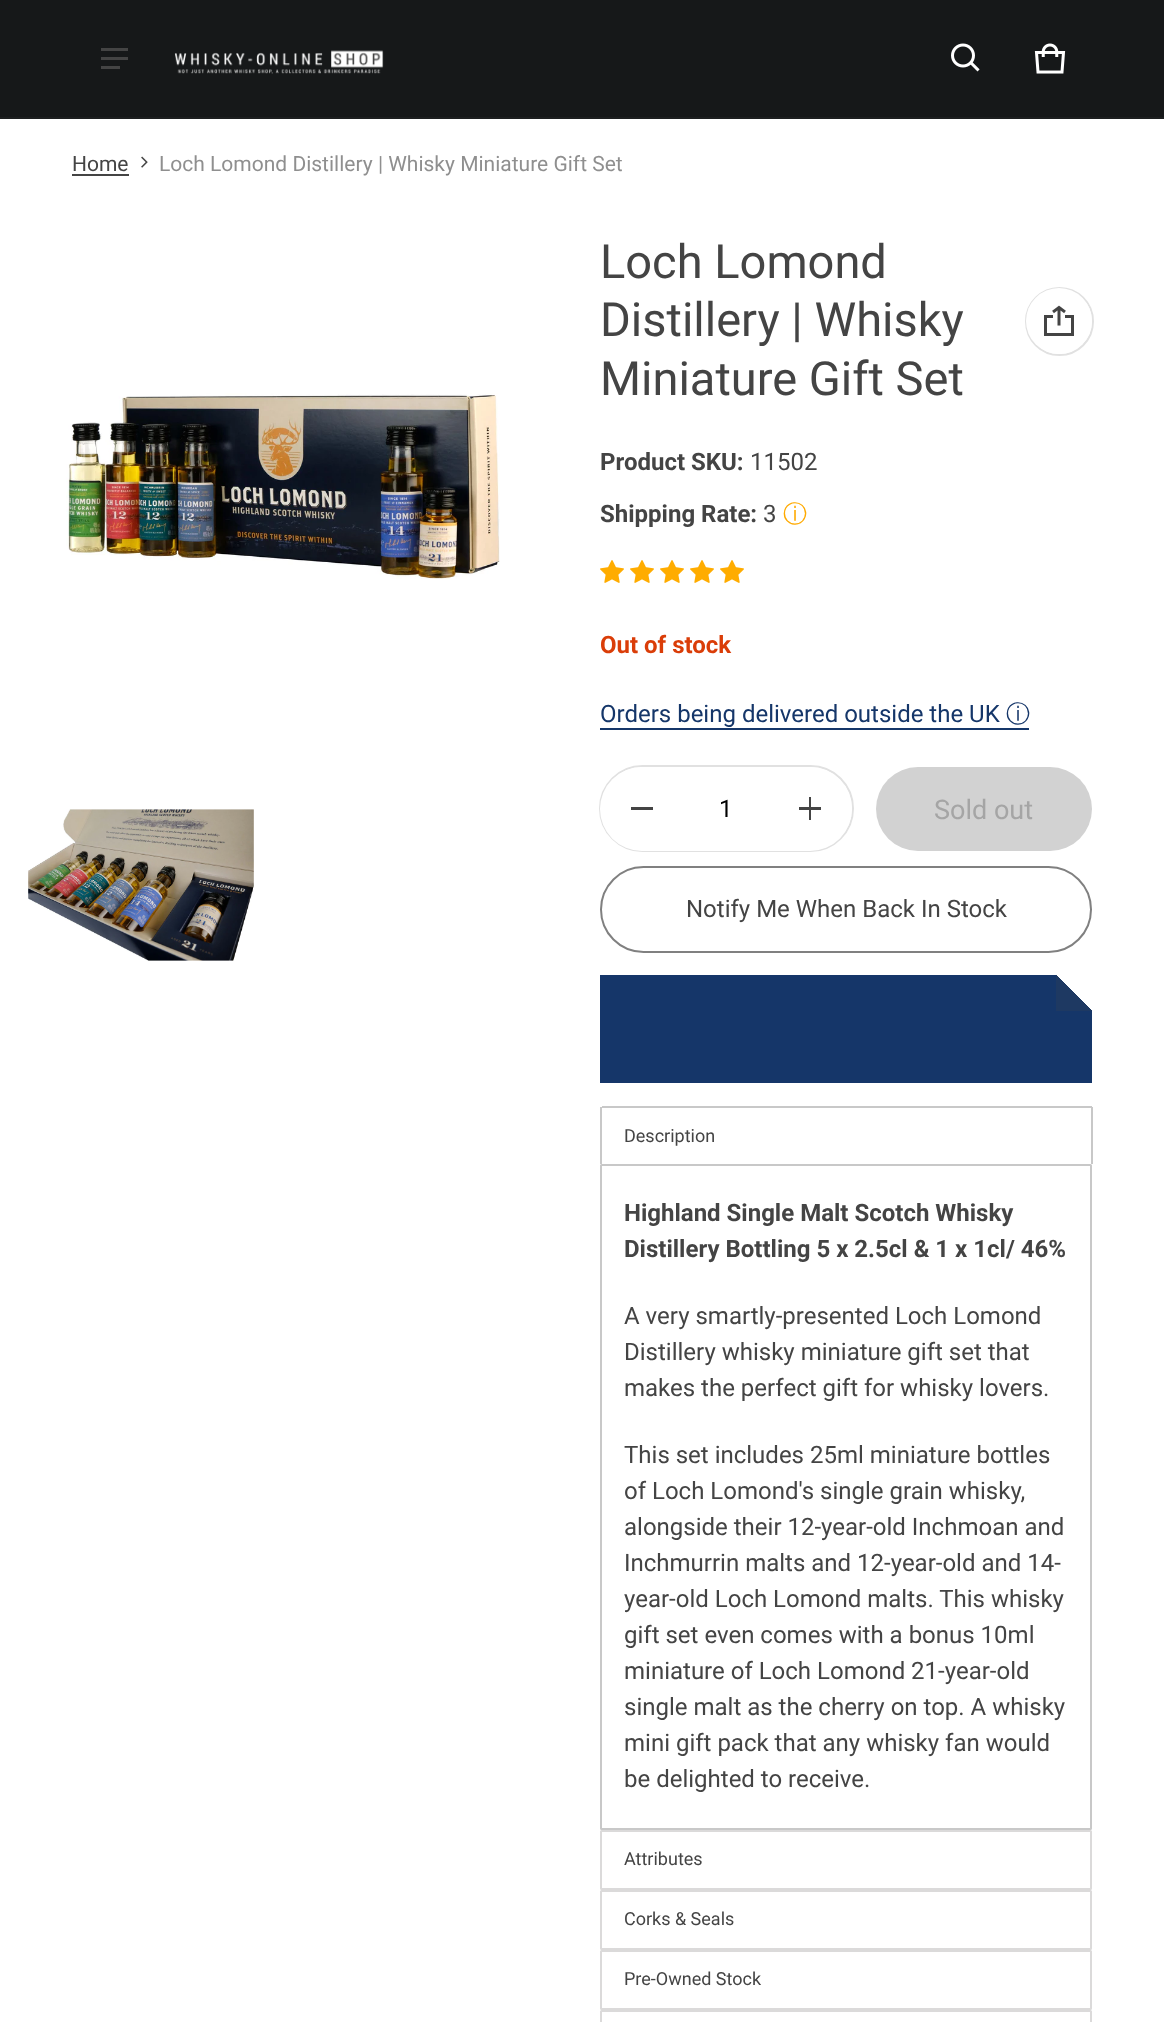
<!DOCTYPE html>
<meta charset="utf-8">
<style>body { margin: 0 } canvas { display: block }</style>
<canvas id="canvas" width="1164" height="2022"></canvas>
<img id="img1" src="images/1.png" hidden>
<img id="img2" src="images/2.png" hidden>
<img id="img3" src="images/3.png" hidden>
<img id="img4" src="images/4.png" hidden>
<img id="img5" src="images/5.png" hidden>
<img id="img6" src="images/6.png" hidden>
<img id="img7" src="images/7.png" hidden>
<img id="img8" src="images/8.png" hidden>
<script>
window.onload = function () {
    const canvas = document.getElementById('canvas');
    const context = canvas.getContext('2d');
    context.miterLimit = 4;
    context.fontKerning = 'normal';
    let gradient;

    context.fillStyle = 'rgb(255, 255, 255)';
    context.fillRect(0, 0, 1164, 2022);
    context.fillStyle = 'rgb(22, 24, 25)';
    context.fillRect(0, 0, 1164, 117);
    context.fillStyle = 'rgb(29, 31, 32)';
    context.fillRect(0, 117, 1164, 2);
    context.fillStyle = 'rgb(68, 68, 68)';
    context.fillRect(101, 48, 27, 3);
    context.fillRect(101, 57, 27, 3);
    context.fillRect(101, 66, 19, 3);
    context.drawImage(document.getElementById('img1'), 174, 50, 210, 24);
    context.drawImage(document.getElementById('img2'), 951, 43, 29, 29);
    context.drawImage(document.getElementById('img3'), 1034, 43, 32, 31);
    context.fillRect(72, 174, 57, 2);
    context.drawImage(document.getElementById('img4'), 141, 156, 7, 12);
    context.drawImage(document.getElementById('img5'), 66, 393, 434, 186);
    context.drawImage(document.getElementById('img6'), 28, 809, 226, 152);
    context.beginPath();
    context.arc(1059.5, 321.5, 33.5, 0, 2 * Math.PI);
    context.strokeStyle = 'rgb(225, 225, 225)';
    context.lineWidth = 2;
    context.stroke();
    context.fillStyle = 'rgb(255, 255, 255)';
    context.beginPath();
    context.arc(1059, 321, 33, 0, 2 * Math.PI);
    context.fill();
    context.drawImage(document.getElementById('img7'), 1044, 305, 30, 31);
    context.drawImage(document.getElementById('img8'), 600, 560, 24, 23);
    context.drawImage(document.getElementById('img8'), 630, 560, 24, 23);
    context.drawImage(document.getElementById('img8'), 660, 560, 24, 23);
    context.drawImage(document.getElementById('img8'), 690, 560, 24, 23);
    context.drawImage(document.getElementById('img8'), 720, 560, 24, 23);
    context.fillStyle = 'rgb(21, 54, 105)';
    context.fillRect(600, 728, 429, 2);
    context.beginPath();
    context.roundRect(600, 766, 253, 85, 42.5);
    context.stroke();
    context.fillStyle = 'rgb(255, 255, 255)';
    context.beginPath();
    context.roundRect(600, 767, 252, 84, 42);
    context.fill();
    context.fillStyle = 'rgb(68, 68, 68)';
    context.fillRect(631, 807, 22, 3);
    context.fillRect(799, 807, 22, 3);
    context.fillRect(809, 797, 2, 23);
    context.fillStyle = 'rgb(210, 210, 210)';
    context.beginPath();
    context.roundRect(876, 767, 216, 84, 42);
    context.fill();
    context.beginPath();
    context.roundRect(601, 867, 490, 85, 42.5);
    context.strokeStyle = 'rgb(128, 128, 128)';
    context.stroke();
    context.fillStyle = 'rgb(21, 54, 105)';
    context.fillRect(600, 975, 492, 108);
    gradient = context.createLinearGradient(1056, 1011, 1092, 975);
    gradient.addColorStop(0.5, 'rgb(30, 57, 98)');
    gradient.addColorStop(0.5, 'rgb(255, 255, 255)');
    context.fillStyle = gradient;
    context.fillRect(1056, 975, 36, 36);
    context.fillStyle = 'rgb(200, 200, 200)';
    context.fillRect(602, 1106, 490, 2);
    context.fillRect(1091, 1107, 2, 57);
    context.fillRect(600, 1107, 2, 57);
    context.beginPath();
    context.roundRect(601, 1165, 490, 664, 0.5);
    context.strokeStyle = 'rgb(200, 200, 200)';
    context.stroke();
    context.beginPath();
    context.roundRect(601, 1831, 490, 58, 0.5);
    context.strokeStyle = 'rgb(219, 218, 218)';
    context.stroke();
    context.beginPath();
    context.roundRect(601, 1891, 490, 58, 0.5);
    context.stroke();
    context.beginPath();
    context.roundRect(601, 1951, 490, 58, 0.5);
    context.stroke();
    context.beginPath();
    context.roundRect(601, 2011, 490, 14, 0.5);
    context.stroke();
    context.font = '21px Roboto';
    context.fillStyle = 'rgb(68, 68, 68)';
    context.fillText('Home', 72, 171);
    context.fillStyle = 'rgb(143, 143, 143)';
    context.fillText('Loch Lomond Distillery | Whisky Miniature Gift Set', 159, 171);
    context.font = '47px Roboto';
    context.fillStyle = 'rgb(68, 68, 68)';
    context.fillText('Loch Lomond', 600, 278);
    context.fillText('Distillery | Whisky', 600, 336);
    context.fillText('Miniature Gift Set', 600, 395);
    context.font = 'bold 24px Roboto';
    context.fillText('Product SKU:', 600, 470);
    context.font = '24px Roboto';
    context.fillText('11502', 750, 470);
    context.font = 'bold 24px Roboto';
    context.fillText('Shipping Rate:', 600, 522);
    context.font = '24px Roboto';
    context.fillText('3', 763, 522);
    context.font = '500 24px WenQuanYi Zen Hei';
    context.fillStyle = 'rgb(255, 170, 0)';
    context.fillText('ⓘ', 783, 522);
    context.font = 'bold 24px Roboto';
    context.fillStyle = 'rgb(218, 61, 8)';
    context.fillText('Out of stock', 600, 653);
    context.font = '24px Roboto';
    context.fillStyle = 'rgb(21, 54, 105)';
    context.fillText('Orders being delivered outside the UK', 600, 722);
    context.font = '500 24px WenQuanYi Zen Hei';
    context.fillText('ⓘ', 1006, 722);
    context.font = '24px Roboto';
    context.fillStyle = 'rgb(0, 0, 0)';
    context.fillText('1', 719, 817);
    context.font = '27px Roboto';
    context.fillStyle = 'rgb(165, 165, 165)';
    context.fillText('Sold out', 934, 819);
    context.font = '24px Roboto';
    context.fillStyle = 'rgb(68, 68, 68)';
    context.fillText('Notify Me When Back In Stock', 686, 917);
    context.font = '18px Roboto';
    context.fillText('Description', 624, 1142);
    context.font = 'bold 24px Roboto';
    context.fillText('Highland Single Malt Scotch Whisky', 624, 1221);
    context.fillText('Distillery Bottling 5 x 2.5cl & 1 x 1cl/ 46%', 624, 1257);
    context.font = '24px Roboto';
    context.fillText('A very smartly-presented Loch Lomond', 624, 1324);
    context.fillText('Distillery whisky miniature gift set that', 624, 1360);
    context.fillText('makes the perfect gift for whisky lovers.', 624, 1396);
    context.fillText('This set includes 25ml miniature bottles', 624, 1463);
    context.fillText('of Loch Lomond\'s single grain whisky,', 624, 1499);
    context.fillText('alongside their 12-year-old Inchmoan and', 624, 1535);
    context.fillText('Inchmurrin malts and 12-year-old and 14-', 624, 1571);
    context.fillText('year-old Loch Lomond malts. This whisky', 624, 1607);
    context.fillText('gift set even comes with a bonus 10ml', 624, 1643);
    context.fillText('miniature of Loch Lomond 21-year-old', 624, 1679);
    context.fillText('single malt as the cherry on top. A whisky', 624, 1715);
    context.fillText('mini gift pack that any whisky fan would', 624, 1751);
    context.fillText('be delighted to receive.', 624, 1787);
    context.font = '18px Roboto';
    context.fillText('Attributes', 624, 1865);
    context.fillText('Corks & Seals', 624, 1925);
    context.fillText('Pre-Owned Stock', 624, 1985);
};
</script>
